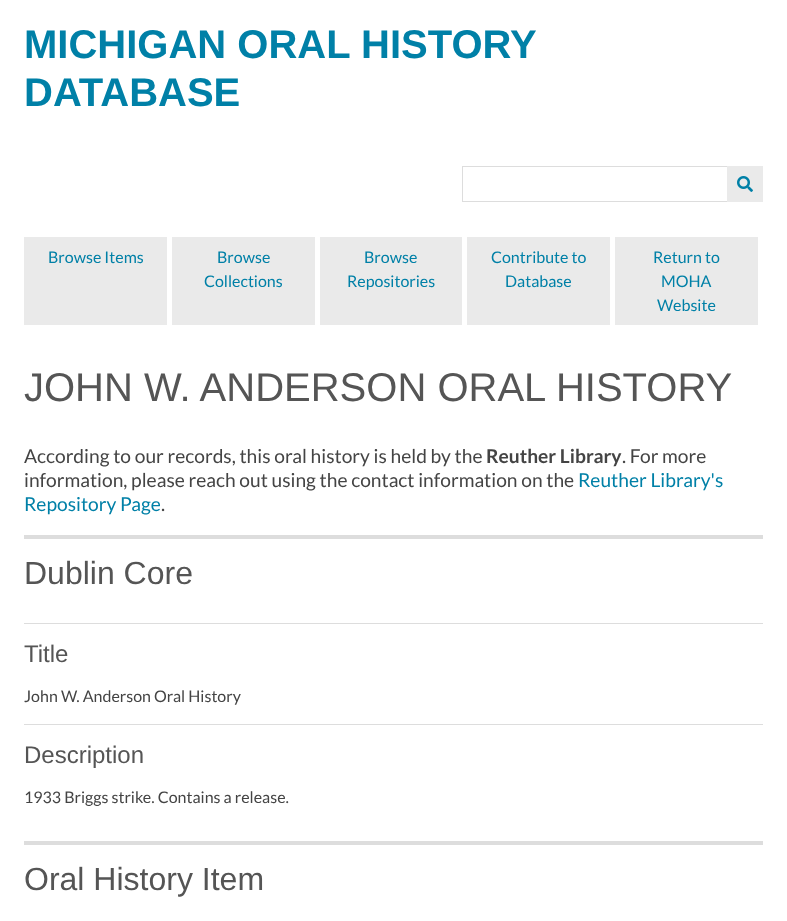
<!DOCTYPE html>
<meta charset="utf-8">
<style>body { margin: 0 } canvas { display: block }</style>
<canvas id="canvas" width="787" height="921"></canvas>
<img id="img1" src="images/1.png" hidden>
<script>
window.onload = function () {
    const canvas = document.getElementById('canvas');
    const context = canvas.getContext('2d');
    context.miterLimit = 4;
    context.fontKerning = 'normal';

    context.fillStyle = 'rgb(255, 255, 255)';
    context.fillRect(0, 0, 787, 921);
    context.strokeStyle = 'rgb(221, 221, 221)';
    context.strokeRect(462.5, 166.5, 266, 35);
    context.fillStyle = 'rgb(234, 234, 234)';
    context.fillRect(727, 166, 36, 36);
    context.drawImage(document.getElementById('img1'), 737, 176, 16, 16);
    context.fillRect(24, 237, 143, 88);
    context.fillRect(172, 237, 143, 88);
    context.fillRect(320, 237, 142, 88);
    context.fillRect(467, 237, 143, 88);
    context.fillRect(615, 237, 143, 88);
    context.fillStyle = 'rgb(221, 221, 221)';
    context.fillRect(24, 535, 739, 4);
    context.fillRect(24, 623, 739, 1);
    context.fillRect(24, 724, 739, 1);
    context.fillRect(24, 841, 739, 4);
    context.font = 'bold 40px Liberation Sans';
    context.fillStyle = 'rgb(0, 128, 167)';
    context.fillText('MICHIGAN ORAL HISTORY', 24, 58);
    context.fillText('DATABASE', 24, 106);
    context.font = '16px Lato';
    context.fillText('Browse Items', 48, 263);
    context.fillText('Browse', 217, 263);
    context.fillText('Collections', 204, 287);
    context.fillText('Browse', 364, 263);
    context.fillText('Repositories', 347, 287);
    context.fillText('Contribute to', 491, 263);
    context.fillText('Database', 505, 287);
    context.fillText('Return to', 653, 263);
    context.fillText('MOHA', 661, 287);
    context.fillText('Website', 657, 311);
    context.font = '40px Liberation Sans';
    context.fillStyle = 'rgb(85, 85, 85)';
    context.fillText('JOHN W. ANDERSON ORAL HISTORY', 24, 401);
    context.font = '19.2px Lato';
    context.fillStyle = 'rgb(68, 68, 68)';
    context.fillText('According to our records, this oral history is held by the', 24, 463);
    context.font = 'bold 19.2px Lato';
    context.fillText('Reuther Library', 486, 463);
    context.font = '19.2px Lato';
    context.fillText('. For more', 622, 463);
    context.fillText('information, please reach out using the contact information on the', 24, 487);
    context.fillStyle = 'rgb(0, 128, 167)';
    context.fillText('Reuther Library\'s', 578, 487);
    context.fillText('Repository Page', 24, 511);
    context.fillStyle = 'rgb(68, 68, 68)';
    context.fillText('.', 161, 511);
    context.font = '32px Liberation Sans';
    context.fillStyle = 'rgb(85, 85, 85)';
    context.fillText('Dublin Core', 24, 584);
    context.font = '24px Liberation Sans';
    context.fillText('Title', 24, 662);
    context.font = '16px Lato';
    context.fillStyle = 'rgb(68, 68, 68)';
    context.fillText('John W. Anderson Oral History', 24, 702);
    context.font = '24px Liberation Sans';
    context.fillStyle = 'rgb(85, 85, 85)';
    context.fillText('Description', 24, 763);
    context.font = '16px Lato';
    context.fillStyle = 'rgb(68, 68, 68)';
    context.fillText('1933 Briggs strike. Contains a release.', 24, 803);
    context.font = '32px Liberation Sans';
    context.fillStyle = 'rgb(85, 85, 85)';
    context.fillText('Oral History Item', 24, 890);
};
</script>
